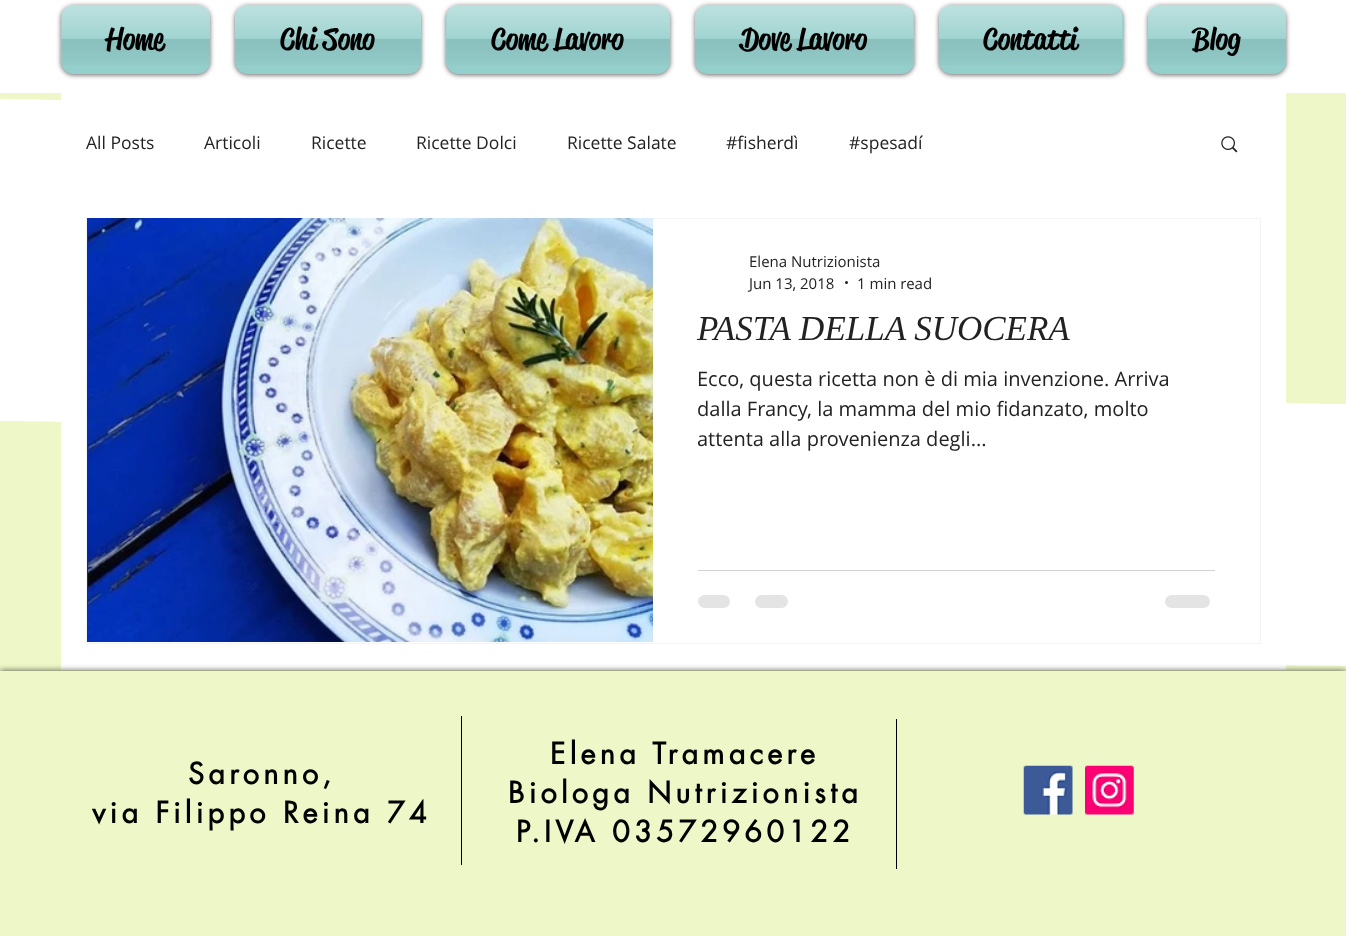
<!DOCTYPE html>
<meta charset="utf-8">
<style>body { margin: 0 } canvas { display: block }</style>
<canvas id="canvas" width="1346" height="936"></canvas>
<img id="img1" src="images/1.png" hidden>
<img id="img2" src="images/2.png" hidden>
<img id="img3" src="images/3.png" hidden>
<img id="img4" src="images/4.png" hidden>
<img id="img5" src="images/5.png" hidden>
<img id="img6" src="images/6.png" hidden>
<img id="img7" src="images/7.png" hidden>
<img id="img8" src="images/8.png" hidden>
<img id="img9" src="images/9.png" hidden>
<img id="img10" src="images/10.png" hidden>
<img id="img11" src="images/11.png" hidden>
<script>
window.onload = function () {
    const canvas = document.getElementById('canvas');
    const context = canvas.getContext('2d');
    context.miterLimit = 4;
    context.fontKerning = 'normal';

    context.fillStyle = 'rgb(255, 255, 255)';
    context.fillRect(0, 0, 1346, 936);
    context.fillStyle = 'rgba(0, 0, 0, 0.6)';
    context.filter = 'blur(2.5px)';
    context.beginPath();
    context.roundRect(61, 6, 149, 69, 13);
    context.fill();
    context.filter = 'none';
    context.fillStyle = 'rgb(149, 207, 204)';
    context.beginPath();
    context.roundRect(61, 5, 149, 69, 13);
    context.fill();
    context.drawImage(document.getElementById('img1'), 61, 5, 149, 60);
    context.fillStyle = 'rgba(0, 0, 0, 0.6)';
    context.filter = 'blur(2.5px)';
    context.beginPath();
    context.roundRect(235, 6, 186, 69, 13);
    context.fill();
    context.filter = 'none';
    context.fillStyle = 'rgb(149, 207, 204)';
    context.beginPath();
    context.roundRect(235, 5, 186, 69, 13);
    context.fill();
    context.drawImage(document.getElementById('img2'), 235, 5, 186, 60);
    context.fillStyle = 'rgba(0, 0, 0, 0.6)';
    context.filter = 'blur(2.5px)';
    context.beginPath();
    context.roundRect(446, 6, 224, 69, 13);
    context.fill();
    context.filter = 'none';
    context.fillStyle = 'rgb(149, 207, 204)';
    context.beginPath();
    context.roundRect(446, 5, 224, 69, 13);
    context.fill();
    context.drawImage(document.getElementById('img3'), 446, 5, 224, 60);
    context.fillStyle = 'rgba(0, 0, 0, 0.6)';
    context.filter = 'blur(2.5px)';
    context.beginPath();
    context.roundRect(695, 6, 219, 69, 13);
    context.fill();
    context.filter = 'none';
    context.fillStyle = 'rgb(149, 207, 204)';
    context.beginPath();
    context.roundRect(695, 5, 219, 69, 13);
    context.fill();
    context.drawImage(document.getElementById('img4'), 695, 5, 219, 60);
    context.fillStyle = 'rgba(0, 0, 0, 0.6)';
    context.filter = 'blur(2.5px)';
    context.beginPath();
    context.roundRect(939, 6, 184, 69, 13);
    context.fill();
    context.filter = 'none';
    context.fillStyle = 'rgb(149, 207, 204)';
    context.beginPath();
    context.roundRect(939, 5, 184, 69, 13);
    context.fill();
    context.drawImage(document.getElementById('img5'), 939, 5, 184, 60);
    context.fillStyle = 'rgba(0, 0, 0, 0.6)';
    context.filter = 'blur(2.5px)';
    context.beginPath();
    context.roundRect(1148, 6, 138, 69, 13);
    context.fill();
    context.filter = 'none';
    context.fillStyle = 'rgb(149, 207, 204)';
    context.beginPath();
    context.roundRect(1148, 5, 138, 69, 13);
    context.fill();
    context.drawImage(document.getElementById('img6'), 1148, 5, 138, 60);
    context.save();
    context.beginPath();
    context.rect(0, 93, 1346, 311);
    context.clip();
    context.fillStyle = 'rgb(237, 247, 199)';
    context.beginPath();
    context.moveTo(0, 92);
    context.lineTo(0, 99);
    context.bezierCurveTo(319, 99, 484, 179, 759, 300);
    context.bezierCurveTo(1003, 408, 1346, 404, 1346, 404);
    context.lineTo(1346, 92);
    context.closePath();
    context.fill();
    context.restore();
    context.fillStyle = 'rgb(237, 247, 199)';
    context.beginPath();
    context.moveTo(1346, 671);
    context.lineTo(1346, 666);
    context.bezierCurveTo(1027, 666, 862, 602, 587, 505);
    context.bezierCurveTo(344, 418, 0, 421, 0, 421);
    context.lineTo(0, 671);
    context.closePath();
    context.fill();
    context.fillStyle = 'rgb(255, 255, 255)';
    context.fillRect(61, 93, 1225, 577);
    context.drawImage(document.getElementById('img7'), 1221, 136, 17, 17);
    context.strokeStyle = 'rgb(244, 244, 244)';
    context.strokeRect(86.5, 218.5, 1174, 425);
    context.drawImage(document.getElementById('img8'), 87, 218, 1, 424);
    context.drawImage(document.getElementById('img9'), 88, 218, 566, 424);
    context.fillRect(653, 219, 1, 423);
    context.fillStyle = 'rgb(34, 34, 34)';
    context.beginPath();
    context.arc(846.5, 282.5, 1.5, 0, 2 * Math.PI);
    context.fill();
    context.fillStyle = 'rgb(211, 211, 211)';
    context.fillRect(698, 570, 517, 1);
    context.fillStyle = 'rgb(228, 228, 228)';
    context.beginPath();
    context.roundRect(698, 595, 32, 13, 6.5);
    context.fill();
    context.beginPath();
    context.roundRect(755, 595, 33, 13, 6.5);
    context.fill();
    context.beginPath();
    context.roundRect(1165, 595, 45, 13, 6.5);
    context.fill();
    context.fillStyle = 'rgba(0, 0, 0, 0.7)';
    context.filter = 'blur(3px)';
    context.beginPath();
    context.rect(0, 671, 1346, 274);
    context.fill();
    context.filter = 'none';
    context.fillStyle = 'rgb(237, 247, 199)';
    context.fillRect(0, 671, 1346, 265);
    context.fillStyle = 'rgb(0, 0, 0)';
    context.fillRect(461, 716, 1, 149);
    context.fillRect(896, 719, 1, 150);
    context.drawImage(document.getElementById('img10'), 1023, 765, 50, 50);
    context.drawImage(document.getElementById('img11'), 1085, 765, 49, 50);
    context.font = '500 30px "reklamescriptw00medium"';
    context.fillText('Home', 106, 49);
    context.fillText('Chi Sono', 280, 49);
    context.fillText('Come Lavoro', 491, 49);
    context.fillText('Dove Lavoro', 740, 49);
    context.fillText('Contatti', 983, 49);
    context.fillText('Blog', 1192, 49);
    context.font = '17.5px Open Sans';
    context.fillStyle = 'rgb(34, 34, 34)';
    context.fillText('All Posts', 86, 149);
    context.fillText('Articoli', 204, 149);
    context.fillText('Ricette', 311, 149);
    context.fillText('Ricette Dolci', 416, 149);
    context.fillText('Ricette Salate', 567, 149);
    context.fillText('#fisherdì', 726, 149);
    context.fillText('#spesadí', 849, 149);
    context.font = '15px Open Sans';
    context.fillText('Elena Nutrizionista', 749, 267);
    context.fillText('Jun 13, 2018', 749, 289);
    context.fillText('1 min read', 857, 289);
    context.font = 'italic 35px Liberation Serif';
    context.fillText('PASTA DELLA SUOCERA', 697, 340);
    context.font = '20px Open Sans';
    context.fillText('Ecco, questa ricetta non è di mia invenzione. Arriva', 697, 386);
    context.fillText('dalla Francy, la mamma del mio fidanzato, molto', 697, 416);
    context.fillText('attenta alla provenienza degli...', 697, 446);
    context.letterSpacing = '4.3px';
    context.font = 'bold 28.75px futura';
    context.fillStyle = 'rgb(0, 0, 0)';
    context.fillText('Saronno,', 188, 784);
    context.fillText('via Filippo Reina 74', 92, 823);
    context.fillText('Elena Tramacere', 550, 764);
    context.fillText('Biologa Nutrizionista', 508, 803);
    context.fillText('P.IVA 03572960122', 516, 842);
};
</script>
